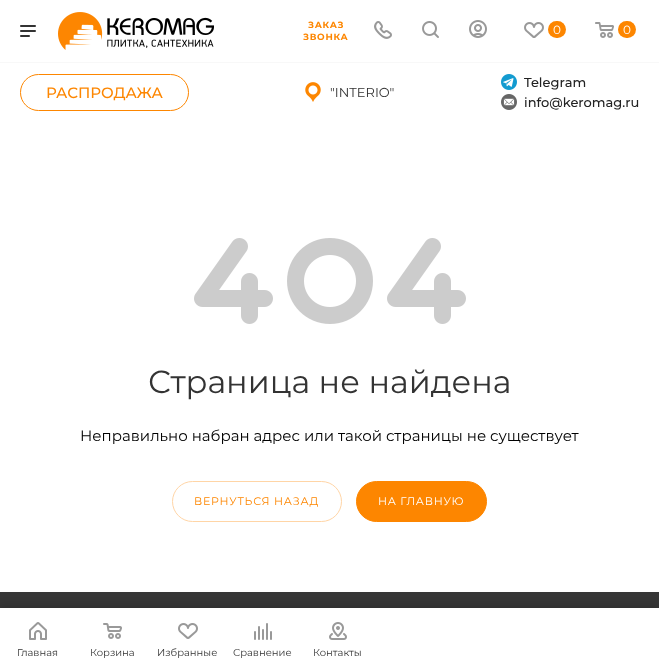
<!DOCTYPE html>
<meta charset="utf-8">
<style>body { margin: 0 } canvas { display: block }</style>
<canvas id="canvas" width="659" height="670"></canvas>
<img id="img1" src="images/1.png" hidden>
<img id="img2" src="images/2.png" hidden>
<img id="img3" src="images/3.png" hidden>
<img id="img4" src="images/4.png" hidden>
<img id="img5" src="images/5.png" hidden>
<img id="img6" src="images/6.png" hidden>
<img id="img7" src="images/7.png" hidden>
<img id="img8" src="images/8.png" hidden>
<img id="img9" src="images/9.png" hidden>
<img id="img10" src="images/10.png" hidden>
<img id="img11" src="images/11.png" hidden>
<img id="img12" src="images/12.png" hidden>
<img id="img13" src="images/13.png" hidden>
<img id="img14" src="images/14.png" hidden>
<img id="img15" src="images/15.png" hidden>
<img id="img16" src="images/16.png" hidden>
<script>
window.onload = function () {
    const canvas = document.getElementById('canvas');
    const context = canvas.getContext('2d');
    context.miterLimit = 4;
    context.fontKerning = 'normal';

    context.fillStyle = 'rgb(255, 255, 255)';
    context.fillRect(0, 0, 659, 670);
    context.fillStyle = 'rgb(248, 248, 248)';
    context.fillRect(0, 62, 659, 1);
    context.drawImage(document.getElementById('img1'), 20, 25, 16, 12);
    context.drawImage(document.getElementById('img2'), 58, 12, 156, 38);
    context.drawImage(document.getElementById('img3'), 374, 21, 18, 18);
    context.drawImage(document.getElementById('img4'), 422, 21, 17, 17);
    context.drawImage(document.getElementById('img5'), 469, 20, 18, 18);
    context.drawImage(document.getElementById('img6'), 524, 22, 20, 16);
    context.fillStyle = 'rgb(253, 134, 0)';
    context.beginPath();
    context.roundRect(548, 21, 18, 17, 8.5);
    context.fill();
    context.drawImage(document.getElementById('img7'), 595, 22, 19, 16);
    context.beginPath();
    context.roundRect(618, 21, 18, 17, 8.5);
    context.fill();
    context.beginPath();
    context.roundRect(20.5, 74.5, 168, 36, 18);
    context.strokeStyle = 'rgb(253, 134, 0)';
    context.stroke();
    context.drawImage(document.getElementById('img8'), 305, 82, 16, 20);
    context.drawImage(document.getElementById('img9'), 501, 74, 16, 16);
    context.drawImage(document.getElementById('img10'), 501, 94, 16, 16);
    context.drawImage(document.getElementById('img11'), 194, 238, 272, 86);
    context.beginPath();
    context.roundRect(172.5, 481.5, 169, 40, 20);
    context.strokeStyle = 'rgb(255, 213, 166)';
    context.stroke();
    context.beginPath();
    context.roundRect(356.5, 481.5, 130, 40, 20);
    context.fill();
    context.strokeStyle = 'rgb(253, 134, 0)';
    context.stroke();
    context.fillStyle = 'rgb(54, 54, 54)';
    context.fillRect(0, 592, 659, 16);
    context.fillStyle = 'rgba(0, 0, 0, 0.15)';
    context.filter = 'blur(4px)';
    context.beginPath();
    context.rect(0, 606, 659, 62);
    context.fill();
    context.filter = 'none';
    context.fillStyle = 'rgb(255, 255, 255)';
    context.fillRect(0, 608, 659, 62);
    context.drawImage(document.getElementById('img12'), 29, 622, 18, 18);
    context.drawImage(document.getElementById('img13'), 103, 623, 19, 16);
    context.drawImage(document.getElementById('img14'), 178, 623, 20, 16);
    context.drawImage(document.getElementById('img15'), 254, 623, 18, 17);
    context.drawImage(document.getElementById('img16'), 329, 622, 18, 18);
    context.letterSpacing = '0.75px';
    context.font = 'bold 9px Montserrat';
    context.fillStyle = 'rgb(253, 134, 0)';
    context.fillText('ЗАКАЗ', 308, 28);
    context.fillText('ЗВОНКА', 303, 40);
    context.letterSpacing = '0px';
    context.font = '12px Montserrat';
    context.fillStyle = 'rgb(255, 255, 255)';
    context.fillText('0', 553, 34);
    context.fillText('0', 623, 34);
    context.font = '500 15px Montserrat';
    context.fillStyle = 'rgb(253, 134, 0)';
    context.fillText('РАСПРОДАЖА', 46, 98);
    context.font = '13px Montserrat';
    context.fillStyle = 'rgb(51, 51, 51)';
    context.fillText('"INTERIO"', 330, 97);
    context.font = '500 13px Montserrat';
    context.fillStyle = 'rgb(34, 34, 34)';
    context.fillText('Telegram', 524, 87);
    context.fillText('info@keromag.ru', 524, 107);
    context.font = '32px Montserrat';
    context.fillStyle = 'rgb(51, 51, 51)';
    context.fillText('Страница не найдена', 148, 393);
    context.font = '15px Montserrat';
    context.fillStyle = 'rgb(0, 0, 0)';
    context.fillText('Неправильно набран адрес или такой страницы не существует', 80, 441);
    context.letterSpacing = '0.75px';
    context.font = '11px Montserrat';
    context.fillStyle = 'rgb(253, 134, 0)';
    context.fillText('ВЕРНУТЬСЯ НАЗАД', 194, 505);
    context.fillStyle = 'rgb(255, 255, 255)';
    context.fillText('НА ГЛАВНУЮ', 378, 505);
    context.letterSpacing = '0px';
    context.font = '10px Montserrat';
    context.fillStyle = 'rgb(51, 51, 51)';
    context.fillText('Главная', 17, 656);
    context.fillText('Корзина', 90, 656);
    context.fillText('Избранные', 157, 656);
    context.fillText('Сравнение', 233, 656);
    context.fillText('Контакты', 313, 656);
};
</script>
